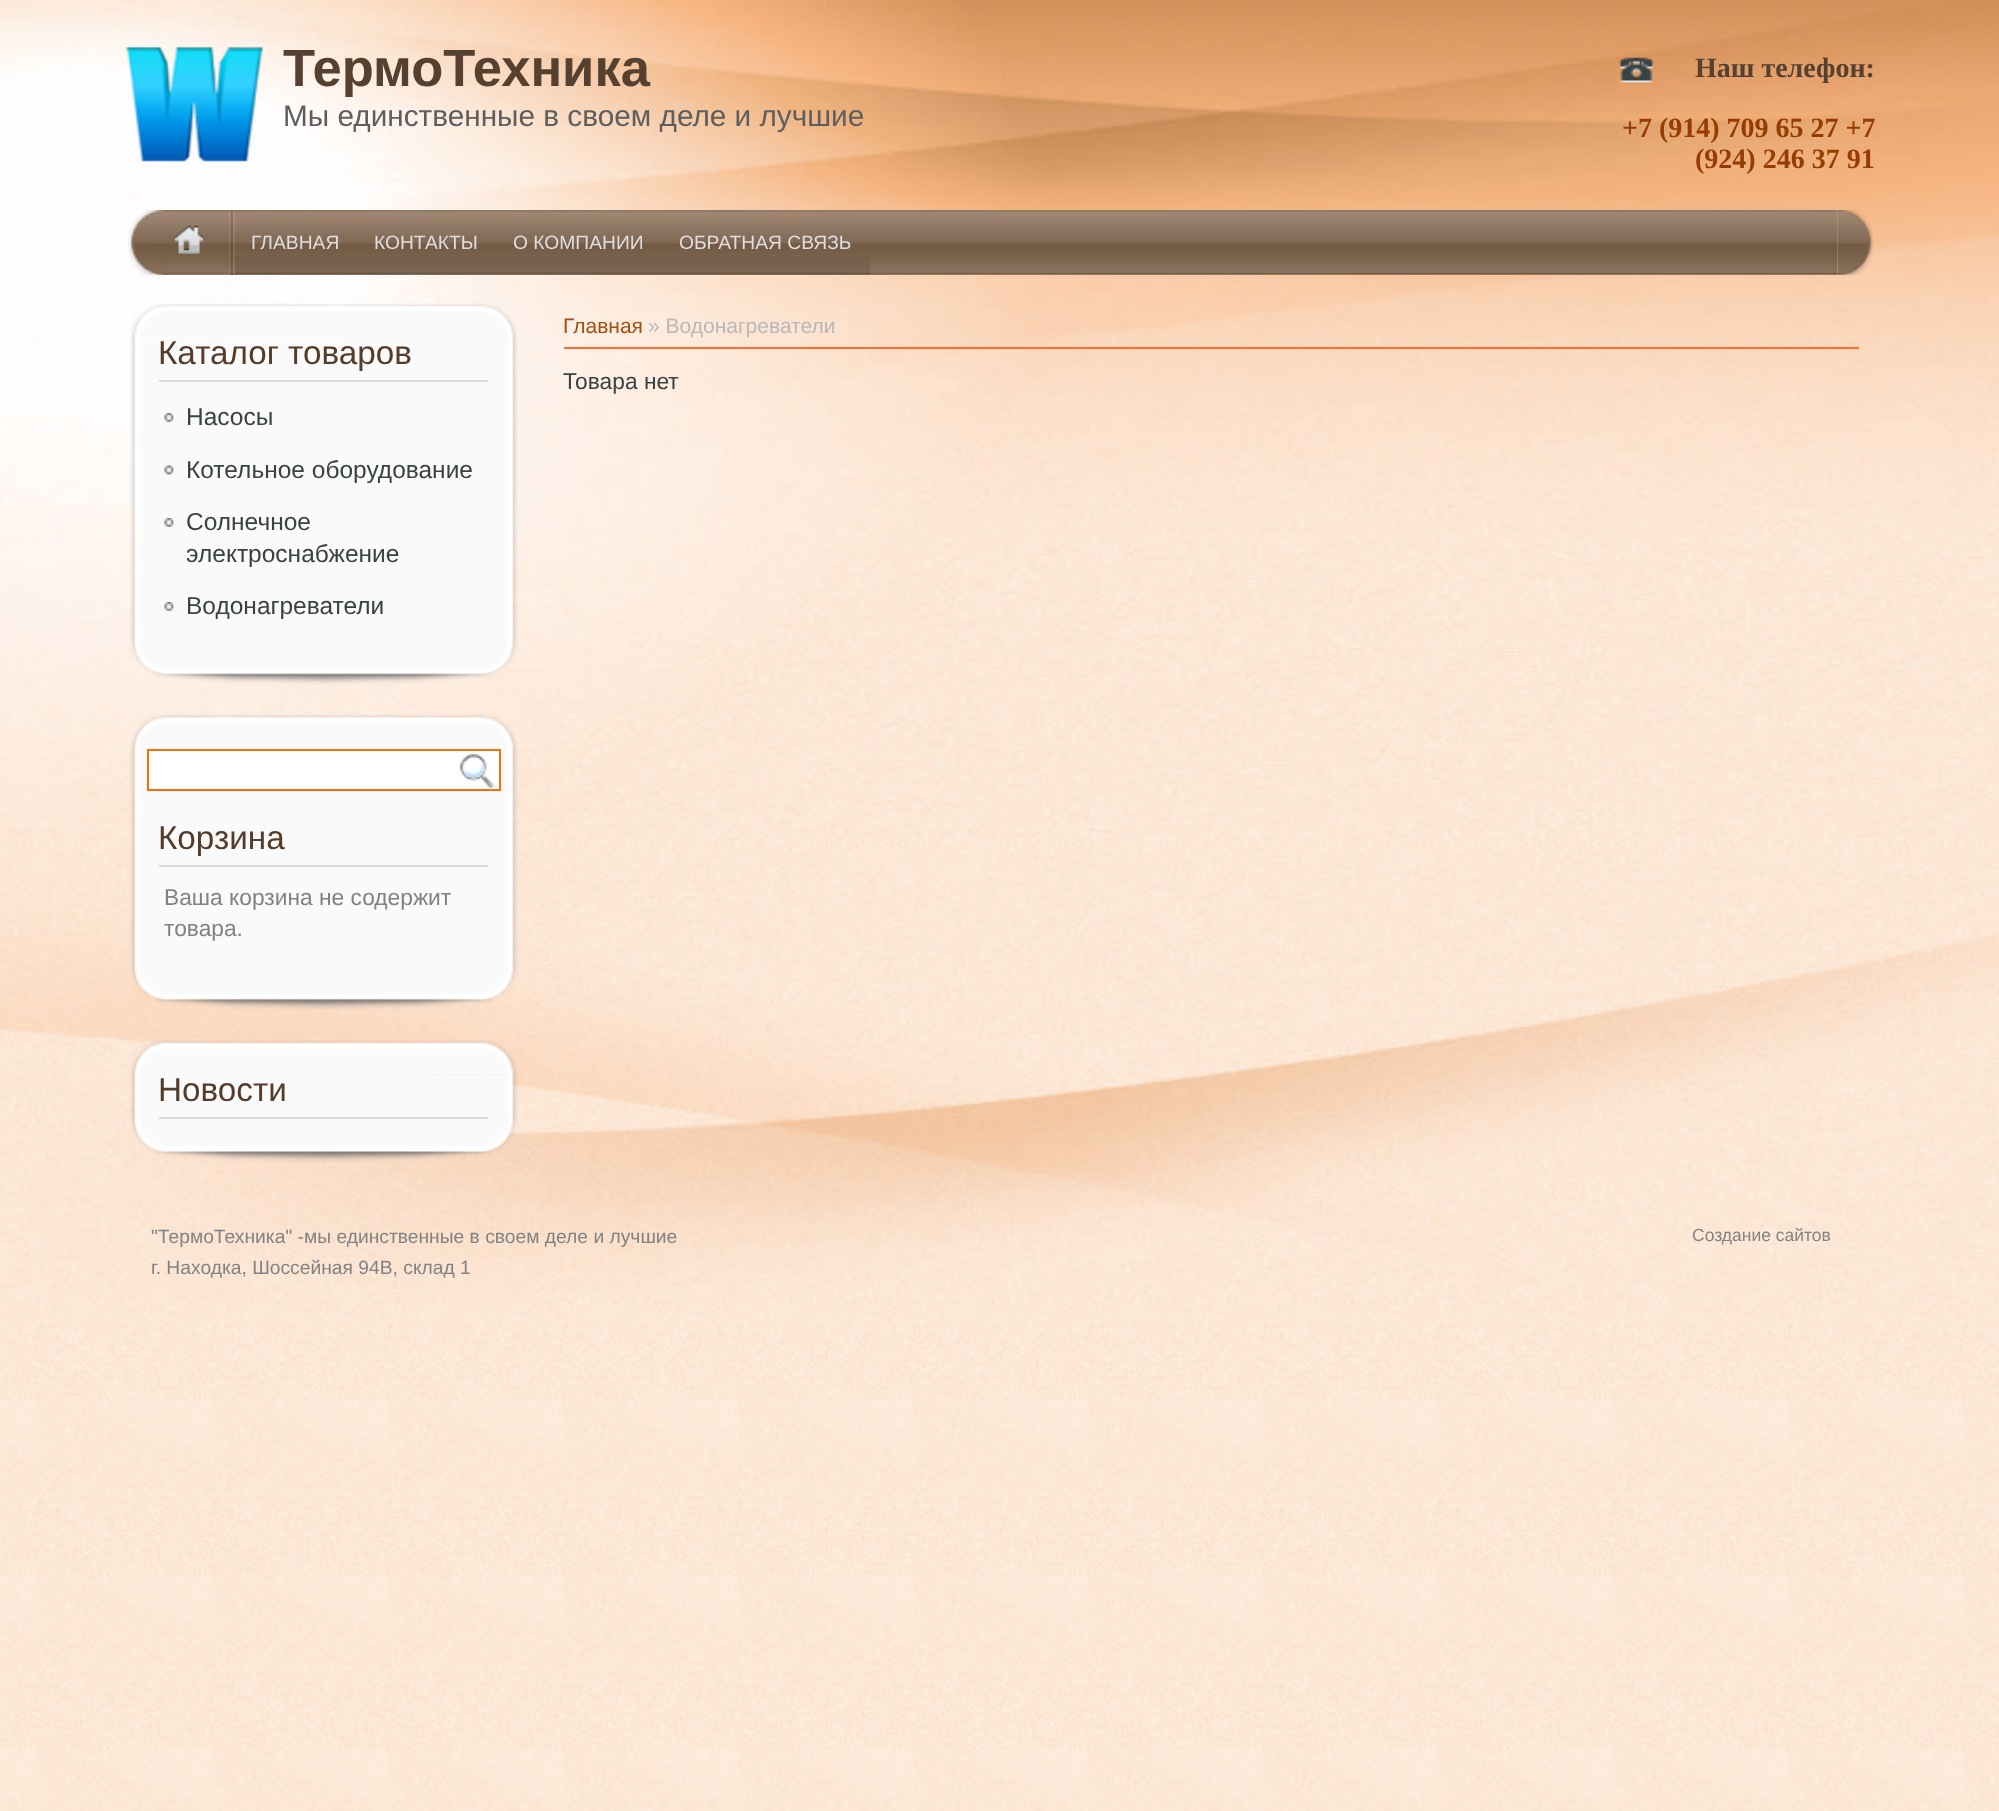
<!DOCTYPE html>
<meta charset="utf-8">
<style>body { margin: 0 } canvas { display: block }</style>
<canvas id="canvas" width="1999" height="1811"></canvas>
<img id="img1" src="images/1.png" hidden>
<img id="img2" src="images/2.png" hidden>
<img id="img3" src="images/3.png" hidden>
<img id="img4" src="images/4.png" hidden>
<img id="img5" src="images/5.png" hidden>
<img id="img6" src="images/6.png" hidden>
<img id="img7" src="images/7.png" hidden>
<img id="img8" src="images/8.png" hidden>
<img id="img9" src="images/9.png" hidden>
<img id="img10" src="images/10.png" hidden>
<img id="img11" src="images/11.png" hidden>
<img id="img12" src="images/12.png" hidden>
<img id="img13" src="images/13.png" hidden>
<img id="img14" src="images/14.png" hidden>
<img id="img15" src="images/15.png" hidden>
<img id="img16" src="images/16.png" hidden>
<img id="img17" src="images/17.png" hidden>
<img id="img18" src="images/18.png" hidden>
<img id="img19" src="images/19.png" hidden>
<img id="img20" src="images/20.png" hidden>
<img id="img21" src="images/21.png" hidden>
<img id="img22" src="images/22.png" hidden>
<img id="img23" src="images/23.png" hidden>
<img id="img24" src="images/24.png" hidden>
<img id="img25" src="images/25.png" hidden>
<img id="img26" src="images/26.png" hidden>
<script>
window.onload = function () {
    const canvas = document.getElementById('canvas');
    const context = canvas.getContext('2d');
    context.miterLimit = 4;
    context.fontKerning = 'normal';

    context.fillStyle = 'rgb(255, 255, 255)';
    context.fillRect(0, 0, 1999, 1811);
    context.drawImage(document.getElementById('img1'), 0, 840, 1999, 971);
    context.drawImage(document.getElementById('img2'), 0, 852, 1999, 452);
    context.drawImage(document.getElementById('img3'), 0, 0, 1999, 840);
    context.drawImage(document.getElementById('img4'), 126, 46, 140, 117);
    context.drawImage(document.getElementById('img5'), 1618, 57, 36, 26);
    context.drawImage(document.getElementById('img6'), 128, 210, 39, 65);
    context.drawImage(document.getElementById('img7'), 1837, 210, 37, 65);
    context.drawImage(document.getElementById('img8'), 164, 210, 1674, 65);
    context.drawImage(document.getElementById('img9'), 175, 225, 28, 29);
    context.drawImage(document.getElementById('img10'), 229, 210, 6, 65);
    context.drawImage(document.getElementById('img11'), 234, 256, 123, 19);
    context.drawImage(document.getElementById('img12'), 357, 256, 139, 19);
    context.drawImage(document.getElementById('img13'), 495, 256, 167, 19);
    context.drawImage(document.getElementById('img14'), 661, 256, 209, 19);
    context.drawImage(document.getElementById('img15'), 130, 303, 388, 35);
    context.drawImage(document.getElementById('img16'), 130, 640, 388, 45);
    context.drawImage(document.getElementById('img17'), 130, 337, 388, 304);
    context.fillStyle = 'rgb(220, 220, 220)';
    context.fillRect(159, 380, 329, 2);
    context.drawImage(document.getElementById('img18'), 164, 413, 10, 9);
    context.drawImage(document.getElementById('img19'), 164, 465, 10, 10);
    context.drawImage(document.getElementById('img18'), 164, 518, 10, 9);
    context.drawImage(document.getElementById('img18'), 164, 602, 10, 9);
    context.drawImage(document.getElementById('img20'), 130, 714, 388, 35);
    context.drawImage(document.getElementById('img21'), 130, 966, 388, 44);
    context.drawImage(document.getElementById('img22'), 130, 749, 388, 217);
    context.fillStyle = 'rgb(255, 255, 255)';
    context.beginPath();
    context.rect(148, 750, 352, 40);
    context.fill();
    context.strokeStyle = 'rgb(255, 108, 0)';
    context.lineWidth = 2;
    context.stroke();
    context.drawImage(document.getElementById('img23'), 459, 752, 38, 36);
    context.fillStyle = 'rgb(220, 220, 220)';
    context.fillRect(159, 865, 329, 2);
    context.drawImage(document.getElementById('img24'), 130, 1040, 388, 35);
    context.drawImage(document.getElementById('img25'), 130, 1118, 388, 45);
    context.drawImage(document.getElementById('img26'), 130, 1074, 388, 45);
    context.fillRect(159, 1117, 329, 2);
    context.fillStyle = 'rgb(255, 108, 44)';
    context.fillRect(564, 347, 1295, 2);
    context.font = 'bold 52.5px Liberation Sans';
    context.fillStyle = 'rgb(86, 64, 48)';
    context.fillText('ТермоТехника', 283, 86);
    context.font = '29.75px Liberation Sans';
    context.fillStyle = 'rgb(94, 94, 94)';
    context.fillText('Мы единственные в своем деле и лучшие', 283, 126);
    context.font = 'bold 28px Liberation Serif';
    context.fillStyle = 'rgb(86, 64, 48)';
    context.fillText('Наш телефон:', 1695, 77);
    context.fillStyle = 'rgb(151, 60, 0)';
    context.fillText('+7 (914) 709 65 27 +7', 1622, 137);
    context.fillText('(924) 246 37 91', 1695, 168);
    context.font = '19.25px Liberation Sans';
    context.fillStyle = 'rgb(223, 223, 223)';
    context.fillText('ГЛАВНАЯ', 251, 249);
    context.fillText('КОНТАКТЫ', 374, 249);
    context.fillText('О КОМПАНИИ', 513, 249);
    context.fillText('ОБРАТНАЯ СВЯЗЬ', 679, 249);
    context.font = '33.25px Liberation Sans';
    context.fillStyle = 'rgb(85, 59, 41)';
    context.fillText('Каталог товаров', 158, 364);
    context.font = '24.5px Liberation Sans';
    context.fillStyle = 'rgb(59, 66, 68)';
    context.fillText('Насосы', 186, 425);
    context.fillText('Котельное оборудование', 186, 478);
    context.fillText('Солнечное', 186, 530);
    context.fillText('электроснабжение', 186, 562);
    context.fillText('Водонагреватели', 186, 614);
    context.font = '33.25px Liberation Sans';
    context.fillStyle = 'rgb(85, 59, 41)';
    context.fillText('Корзина', 158, 849);
    context.font = '22.75px Liberation Sans';
    context.fillStyle = 'rgb(130, 130, 130)';
    context.fillText('Ваша корзина не содержит', 164, 905);
    context.fillText('товара.', 164, 936);
    context.font = '33.25px Liberation Sans';
    context.fillStyle = 'rgb(85, 59, 41)';
    context.fillText('Новости', 158, 1101);
    context.font = '21px Liberation Sans';
    context.fillStyle = 'rgb(161, 80, 21)';
    context.fillText('Главная', 563, 333);
    context.fillStyle = 'rgb(184, 184, 184)';
    context.fillText('» Водонагреватели', 648, 333);
    context.font = '22.75px Liberation Sans';
    context.fillStyle = 'rgb(59, 66, 68)';
    context.fillText('Товара нет', 563, 389);
    context.font = '19.25px Liberation Sans';
    context.fillStyle = 'rgb(130, 130, 130)';
    context.fillText('"ТермоТехника" -мы единственные в своем деле и лучшие', 151, 1243);
    context.fillText('г. Находка, Шоссейная 94В, склад 1', 151, 1274);
    context.font = '17.5px Liberation Sans';
    context.fillText('Создание сайтов', 1692, 1241);
};
</script>
